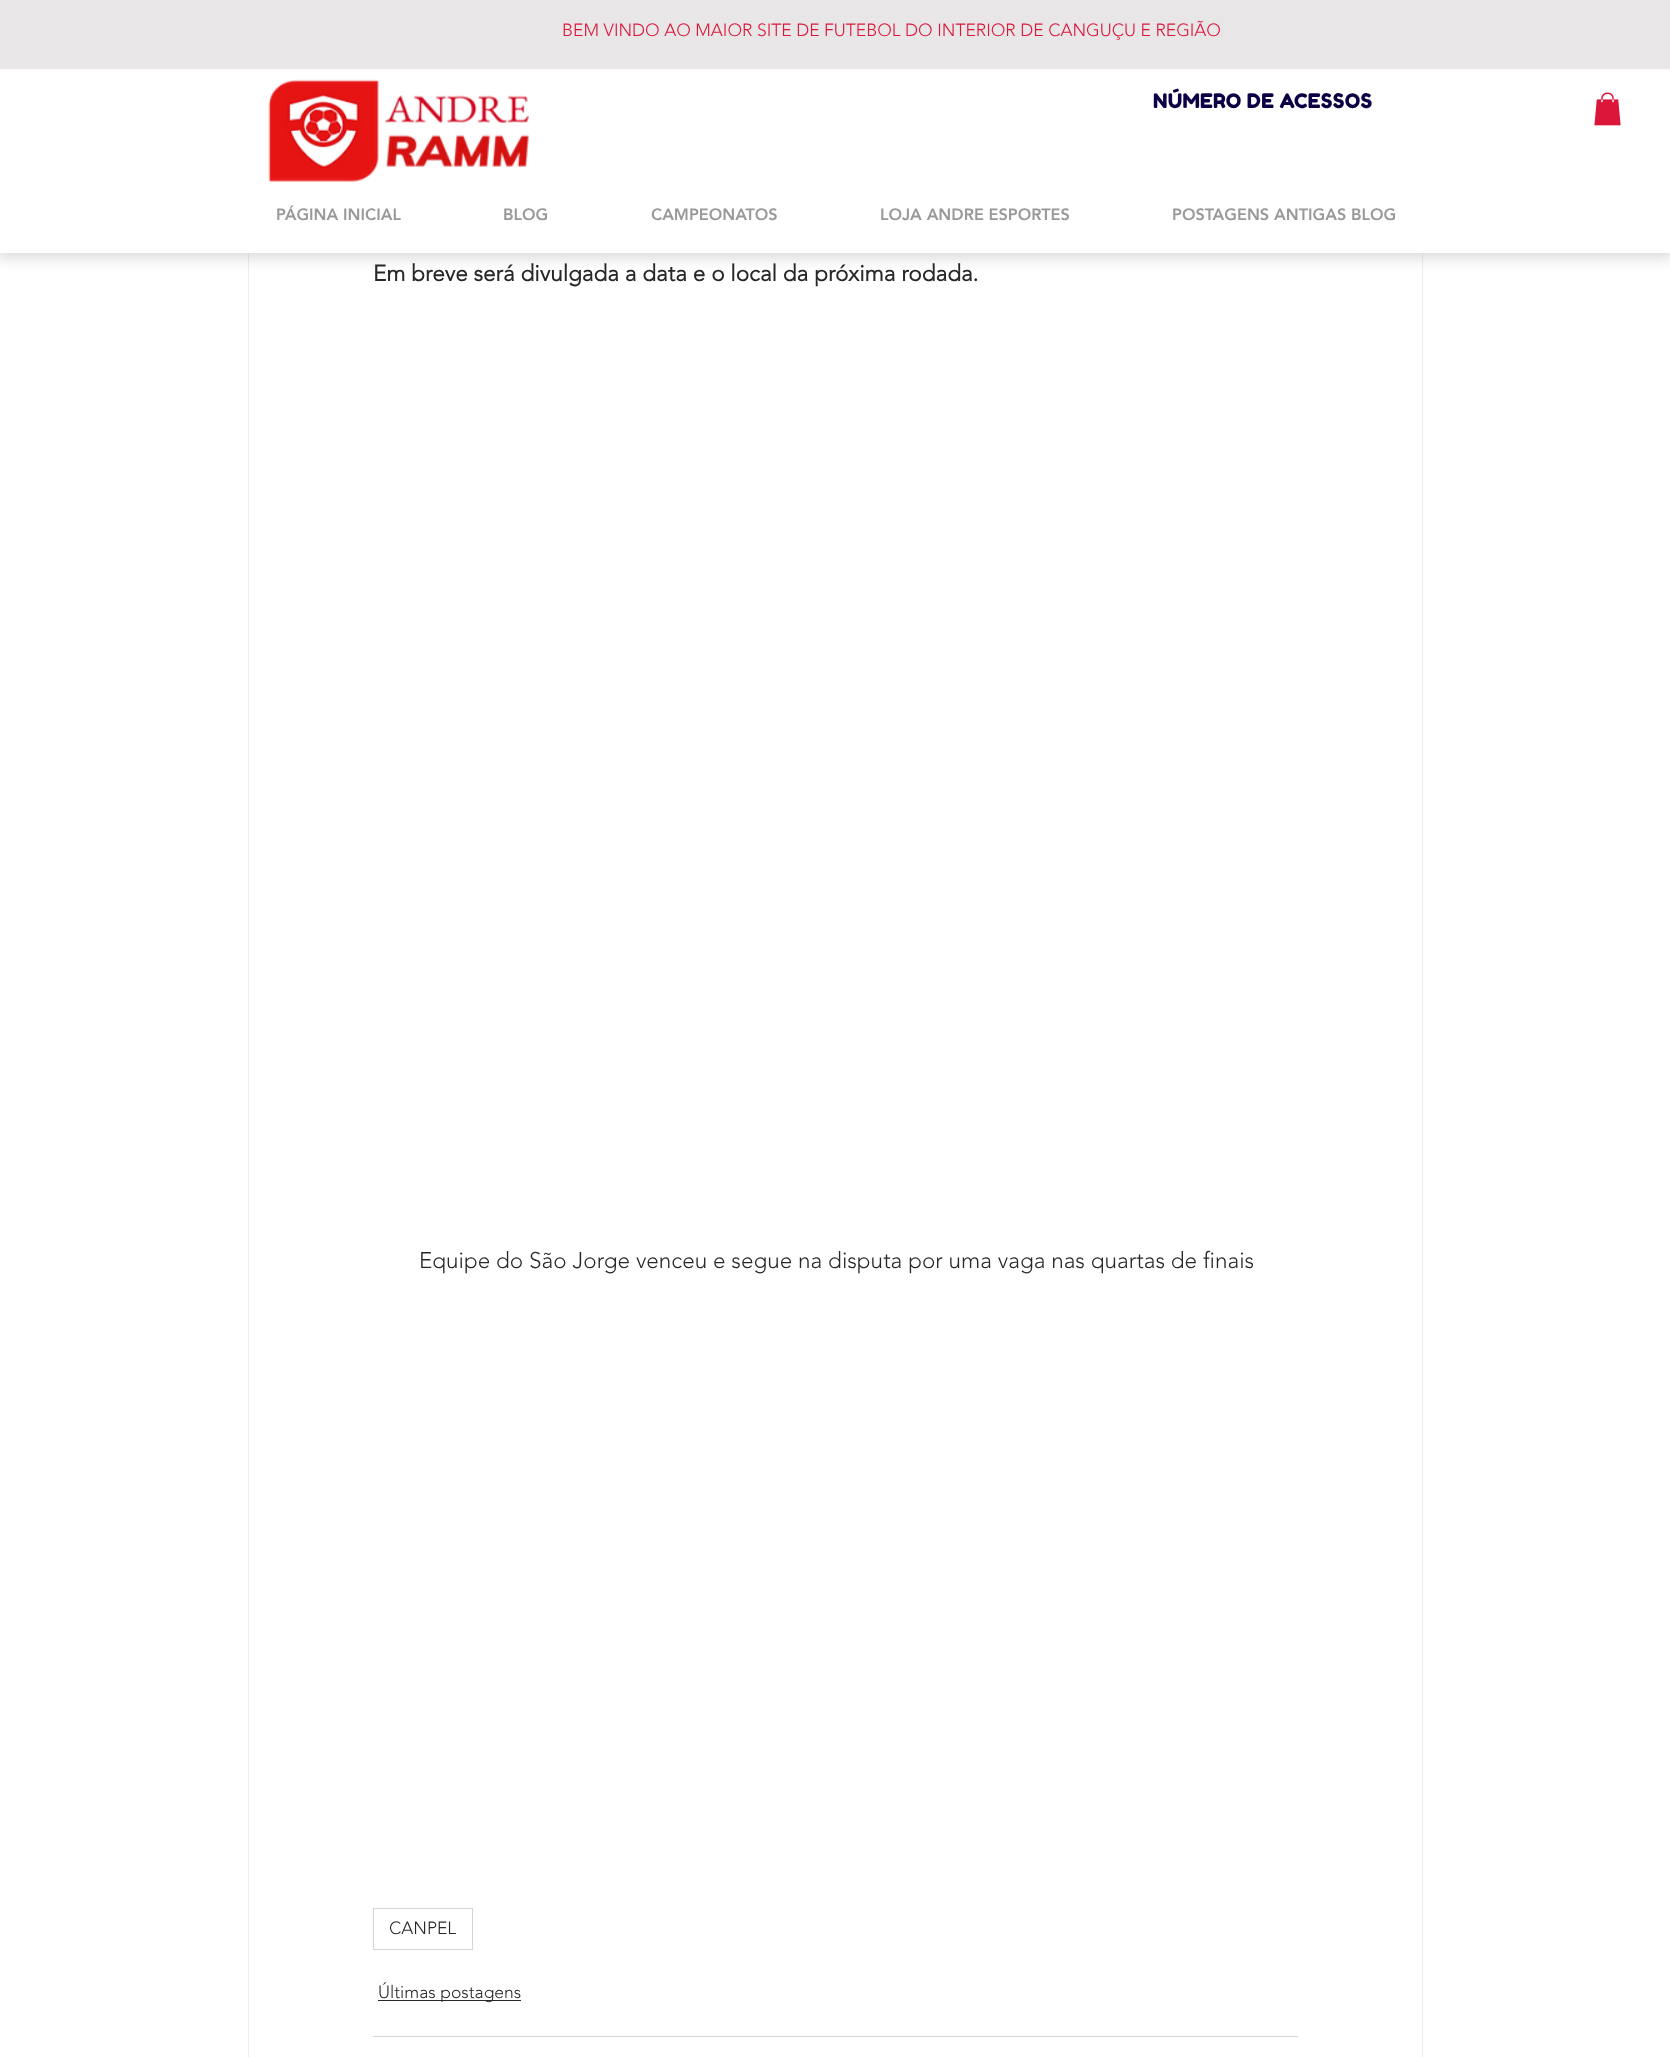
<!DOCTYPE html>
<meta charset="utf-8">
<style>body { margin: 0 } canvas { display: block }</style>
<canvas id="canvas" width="1670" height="2057"></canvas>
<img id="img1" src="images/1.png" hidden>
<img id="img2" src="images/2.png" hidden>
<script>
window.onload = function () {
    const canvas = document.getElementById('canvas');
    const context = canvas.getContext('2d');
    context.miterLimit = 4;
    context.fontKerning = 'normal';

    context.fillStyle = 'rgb(255, 255, 255)';
    context.fillRect(0, 0, 1670, 2057);
    context.strokeStyle = 'rgb(238, 236, 236)';
    context.strokeRect(248.5, -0.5, 1174, 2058);
    context.fillStyle = 'rgba(0, 0, 0, 0.15)';
    context.filter = 'blur(7px)';
    context.beginPath();
    context.rect(-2, 0, 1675, 258);
    context.fill();
    context.filter = 'none';
    context.fillStyle = 'rgb(255, 255, 255)';
    context.fillRect(0, 69, 1670, 184);
    context.fillStyle = 'rgb(232, 230, 230)';
    context.fillRect(0, 0, 1670, 69);
    context.drawImage(document.getElementById('img1'), 268, 79, 261, 103);
    context.drawImage(document.getElementById('img2'), 1594, 92, 27, 34);
    context.strokeStyle = 'rgb(212, 212, 212)';
    context.strokeRect(373.5, 1908.5, 99, 41);
    context.fillStyle = 'rgb(40, 40, 40)';
    context.fillRect(378, 2000, 143, 1);
    context.fillStyle = 'rgb(212, 212, 212)';
    context.fillRect(373, 2036, 925, 1);
    context.font = '300 17.5px "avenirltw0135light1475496"';
    context.fillStyle = 'rgb(219, 22, 58)';
    context.fillText('BEM VINDO AO MAIOR SITE DE FUTEBOL DO INTERIOR DE CANGUÇU E REGIÃO', 562, 36);
    context.letterSpacing = '0.25px';
    context.font = '20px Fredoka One';
    context.fillStyle = 'rgb(12, 1, 69)';
    context.fillText('NÚMERO DE ACESSOS', 1153, 108);
    context.letterSpacing = '0px';
    context.font = '900 16.25px "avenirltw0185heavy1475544"';
    context.fillStyle = 'rgb(153, 153, 153)';
    context.fillText('PÁGINA INICIAL', 276, 220);
    context.fillText('BLOG', 503, 220);
    context.fillText('CAMPEONATOS', 651, 220);
    context.fillText('LOJA ANDRE ESPORTES', 880, 220);
    context.fillText('POSTAGENS ANTIGAS BLOG', 1172, 220);
    context.font = 'bold 22.5px "avenirltw0135light1475496"';
    context.fillStyle = 'rgb(40, 40, 40)';
    context.fillText('Em breve será divulgada a data e o local da próxima rodada.', 373, 281);
    context.font = '300 22.5px "avenirltw0135light1475496"';
    context.fillText('Equipe do São Jorge venceu e segue na disputa por uma vaga nas quartas de finais', 419, 1268);
    context.font = '300 17.5px "avenirltw0135light1475496"';
    context.fillText('CANPEL', 389, 1934);
    context.fillText('Últimas postagens', 378, 1998);
};
</script>
